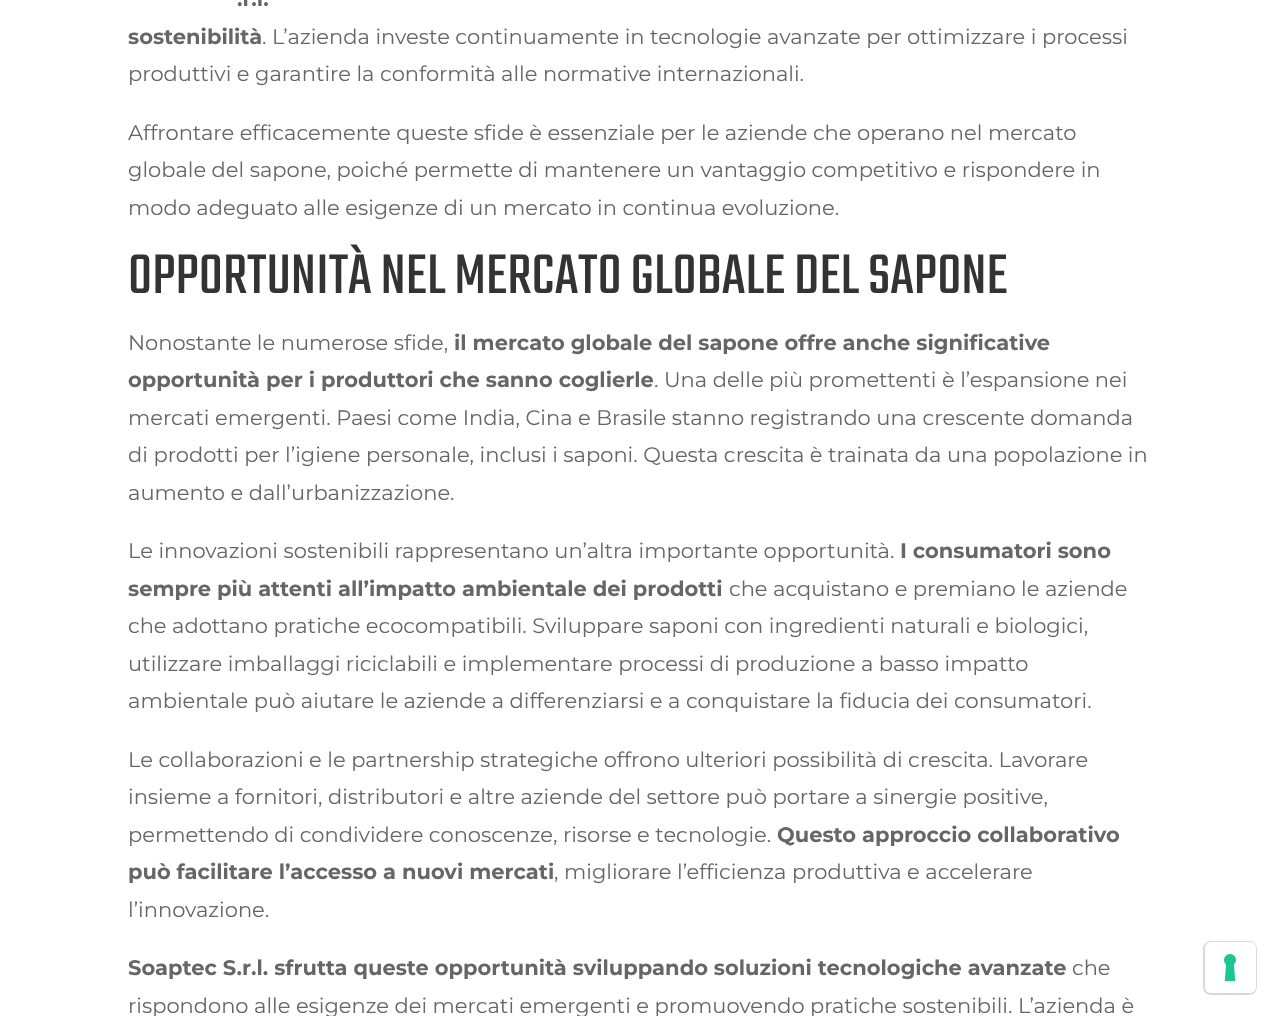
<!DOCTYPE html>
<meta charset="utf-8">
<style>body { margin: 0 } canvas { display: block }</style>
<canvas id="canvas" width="1279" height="1016"></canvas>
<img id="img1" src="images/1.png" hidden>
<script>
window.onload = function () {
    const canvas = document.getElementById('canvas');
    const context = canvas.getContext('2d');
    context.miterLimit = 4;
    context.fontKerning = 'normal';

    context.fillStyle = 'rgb(255, 255, 255)';
    context.fillRect(0, 0, 1279, 1016);
    context.beginPath();
    context.roundRect(1204, 942, 52, 52, 7);
    context.strokeStyle = 'rgb(217, 217, 217)';
    context.lineWidth = 2;
    context.stroke();
    context.beginPath();
    context.roundRect(1205, 942, 51, 51, 6);
    context.fill();
    context.drawImage(document.getElementById('img1'), 1224, 954, 12, 27);
    context.font = 'bold 21px Montserrat';
    context.fillStyle = 'rgb(102, 102, 102)';
    context.fillText('.r.l.', 237, 6);
    context.fillText('sostenibilità', 128, 44);
    context.font = '21px Montserrat';
    context.fillText('. L’azienda investe continuamente in tecnologie avanzate per ottimizzare i processi', 262, 44);
    context.fillText('produttivi e garantire la conformità alle normative internazionali.', 128, 81);
    context.fillText('Affrontare efficacemente queste sfide è essenziale per le aziende che operano nel mercato', 128, 140);
    context.fillText('globale del sapone, poiché permette di mantenere un vantaggio competitivo e rispondere in', 128, 177);
    context.fillText('modo adeguato alle esigenze di un mercato in continua evoluzione.', 128, 215);
    context.font = '61.5px Teko';
    context.fillStyle = 'rgb(51, 51, 51)';
    context.fillText('OPPORTUNITÀ NEL MERCATO GLOBALE DEL SAPONE', 128, 293);
    context.font = '21px Montserrat';
    context.fillStyle = 'rgb(102, 102, 102)';
    context.fillText('Nonostante le numerose sfide,', 128, 350);
    context.font = 'bold 21px Montserrat';
    context.fillText('il mercato globale del sapone offre anche significative', 454, 350);
    context.fillText('opportunità per i produttori che sanno coglierle', 128, 387);
    context.font = '21px Montserrat';
    context.fillText('. Una delle più promettenti è l’espansione nei', 654, 387);
    context.fillText('mercati emergenti. Paesi come India, Cina e Brasile stanno registrando una crescente domanda', 128, 425);
    context.fillText('di prodotti per l’igiene personale, inclusi i saponi. Questa crescita è trainata da una popolazione in', 128, 462);
    context.fillText('aumento e dall’urbanizzazione.', 128, 500);
    context.fillText('Le innovazioni sostenibili rappresentano un’altra importante opportunità.', 128, 558);
    context.font = 'bold 21px Montserrat';
    context.fillText('I consumatori sono', 900, 558);
    context.fillText('sempre più attenti all’impatto ambientale dei prodotti', 128, 596);
    context.font = '21px Montserrat';
    context.fillText('che acquistano e premiano le aziende', 729, 596);
    context.fillText('che adottano pratiche ecocompatibili. Sviluppare saponi con ingredienti naturali e biologici,', 128, 633);
    context.fillText('utilizzare imballaggi riciclabili e implementare processi di produzione a basso impatto', 128, 671);
    context.fillText('ambientale può aiutare le aziende a differenziarsi e a conquistare la fiducia dei consumatori.', 128, 708);
    context.fillText('Le collaborazioni e le partnership strategiche offrono ulteriori possibilità di crescita. Lavorare', 128, 767);
    context.fillText('insieme a fornitori, distributori e altre aziende del settore può portare a sinergie positive,', 128, 804);
    context.fillText('permettendo di condividere conoscenze, risorse e tecnologie.', 128, 842);
    context.font = 'bold 21px Montserrat';
    context.fillText('Questo approccio collaborativo', 777, 842);
    context.fillText('può facilitare l’accesso a nuovi mercati', 128, 879);
    context.font = '21px Montserrat';
    context.fillText(', migliorare l’efficienza produttiva e accelerare', 554, 879);
    context.fillText('l’innovazione.', 128, 917);
    context.font = 'bold 21px Montserrat';
    context.fillText('Soaptec S.r.l. sfrutta queste opportunità sviluppando soluzioni tecnologiche avanzate', 128, 975);
    context.font = '21px Montserrat';
    context.fillText('che', 1072, 975);
    context.fillText('rispondono alle esigenze dei mercati emergenti e promuovendo pratiche sostenibili. L’azienda è', 128, 1013);
};
</script>
